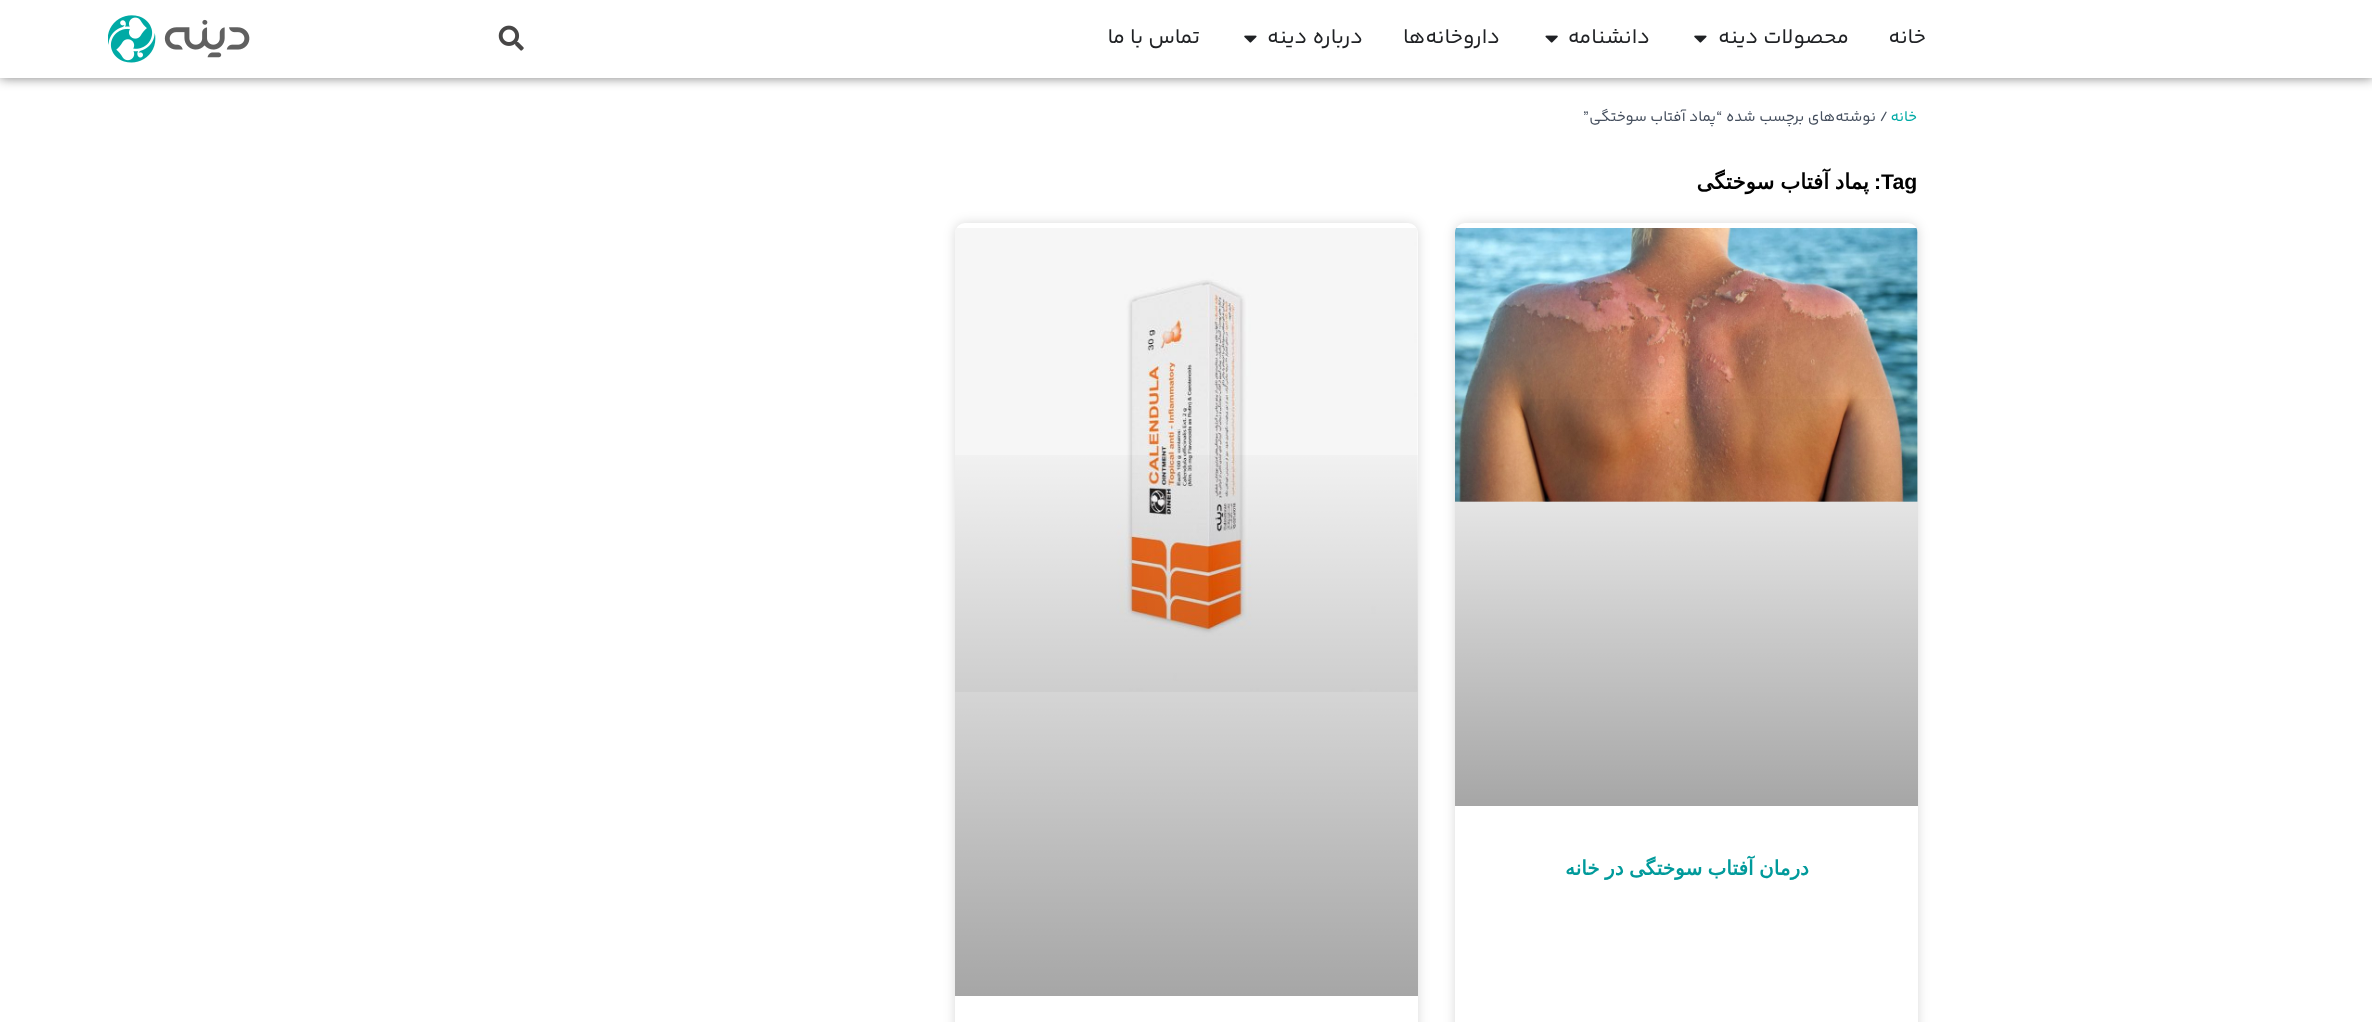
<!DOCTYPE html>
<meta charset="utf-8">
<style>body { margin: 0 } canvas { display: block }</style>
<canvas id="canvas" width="2372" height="1022"></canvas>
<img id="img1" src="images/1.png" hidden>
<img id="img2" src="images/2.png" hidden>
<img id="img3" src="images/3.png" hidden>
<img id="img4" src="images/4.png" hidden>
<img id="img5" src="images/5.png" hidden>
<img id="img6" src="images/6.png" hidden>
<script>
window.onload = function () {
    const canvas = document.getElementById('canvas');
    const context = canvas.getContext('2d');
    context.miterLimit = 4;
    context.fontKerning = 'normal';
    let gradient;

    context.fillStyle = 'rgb(255, 255, 255)';
    context.fillRect(0, 0, 2372, 1022);
    context.fillStyle = 'rgba(0, 0, 0, 0.5)';
    context.filter = 'blur(6px)';
    context.beginPath();
    context.rect(0, 0, 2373, 78);
    context.fill();
    context.filter = 'none';
    context.fillStyle = 'rgb(255, 255, 255)';
    context.fillRect(0, 0, 2372, 78);
    context.drawImage(document.getElementById('img1'), 1694, 35, 13, 8);
    context.drawImage(document.getElementById('img2'), 1545, 35, 13, 8);
    context.drawImage(document.getElementById('img1'), 1244, 35, 13, 8);
    context.drawImage(document.getElementById('img3'), 498, 25, 26, 26);
    context.drawImage(document.getElementById('img4'), 108, 15, 142, 48);
    context.fillStyle = 'rgba(0, 0, 0, 0.15)';
    context.filter = 'blur(6px)';
    context.beginPath();
    context.roundRect(1455, 223, 463, 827, 10);
    context.fill();
    context.filter = 'none';
    context.fillStyle = 'rgb(255, 255, 255)';
    context.beginPath();
    context.roundRect(1455, 223, 463, 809, 10);
    context.fill();
    context.drawImage(document.getElementById('img5'), 1455, 228, 463, 274);
    gradient = context.createLinearGradient(1686, 806, 1686, 228);
    gradient.addColorStop(0, 'rgba(0, 0, 0, 0.35)');
    gradient.addColorStop(0.75, 'rgba(0, 0, 0, 0)');
    context.fillStyle = gradient;
    context.fillRect(1455, 399, 463, 407);
    context.fillStyle = 'rgba(0, 0, 0, 0.15)';
    context.filter = 'blur(6px)';
    context.beginPath();
    context.roundRect(955, 223, 463, 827, 10);
    context.fill();
    context.filter = 'none';
    context.fillStyle = 'rgb(255, 255, 255)';
    context.beginPath();
    context.roundRect(955, 223, 463, 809, 10);
    context.fill();
    context.drawImage(document.getElementById('img6'), 955, 228, 463, 464);
    gradient = context.createLinearGradient(1186, 996, 1186, 228);
    gradient.addColorStop(0, 'rgba(0, 0, 0, 0.35)');
    gradient.addColorStop(0.75, 'rgba(0, 0, 0, 0)');
    context.fillStyle = gradient;
    context.fillRect(955, 455, 463, 541);
    context.direction = 'rtl';
    context.font = '21.25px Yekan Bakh';
    context.fillStyle = 'rgb(31, 33, 36)';
    context.fillText('خانه', 1926, 43);
    context.fillText('محصولات دینه', 1849, 43);
    context.fillText('دانشنامه', 1650, 43);
    context.fillText('داروخانه‌ها', 1500, 43);
    context.fillText('درباره دینه', 1363, 43);
    context.fillText('تماس با ما', 1200, 43);
    context.font = '15px Yekan Bakh';
    context.fillStyle = 'rgb(0, 170, 165)';
    context.fillText('خانه', 1917, 121);
    context.fillStyle = 'rgb(69, 79, 94)';
    context.fillText('/ نوشته‌های برچسب شده “پماد آفتاب سوختگی”', 1888, 121);
    context.direction = 'ltr';
    context.font = 'bold 21.25px Liberation Sans';
    context.fillStyle = 'rgb(0, 0, 0)';
    context.fillText('Tag', 1881, 189);
    context.direction = 'rtl';
    context.fillText(':', 1881, 189);
    context.wordSpacing = '-1px';
    context.font = 'bold 21.25px DejaVu Sans';
    context.fillText('پماد آفتاب سوختگی', 1869, 189);
    context.font = 'bold 20px DejaVu Sans';
    context.fillStyle = 'rgb(0, 154, 155)';
    context.fillText('درمان آفتاب سوختگی در خانه', 1809, 875);
};
</script>
